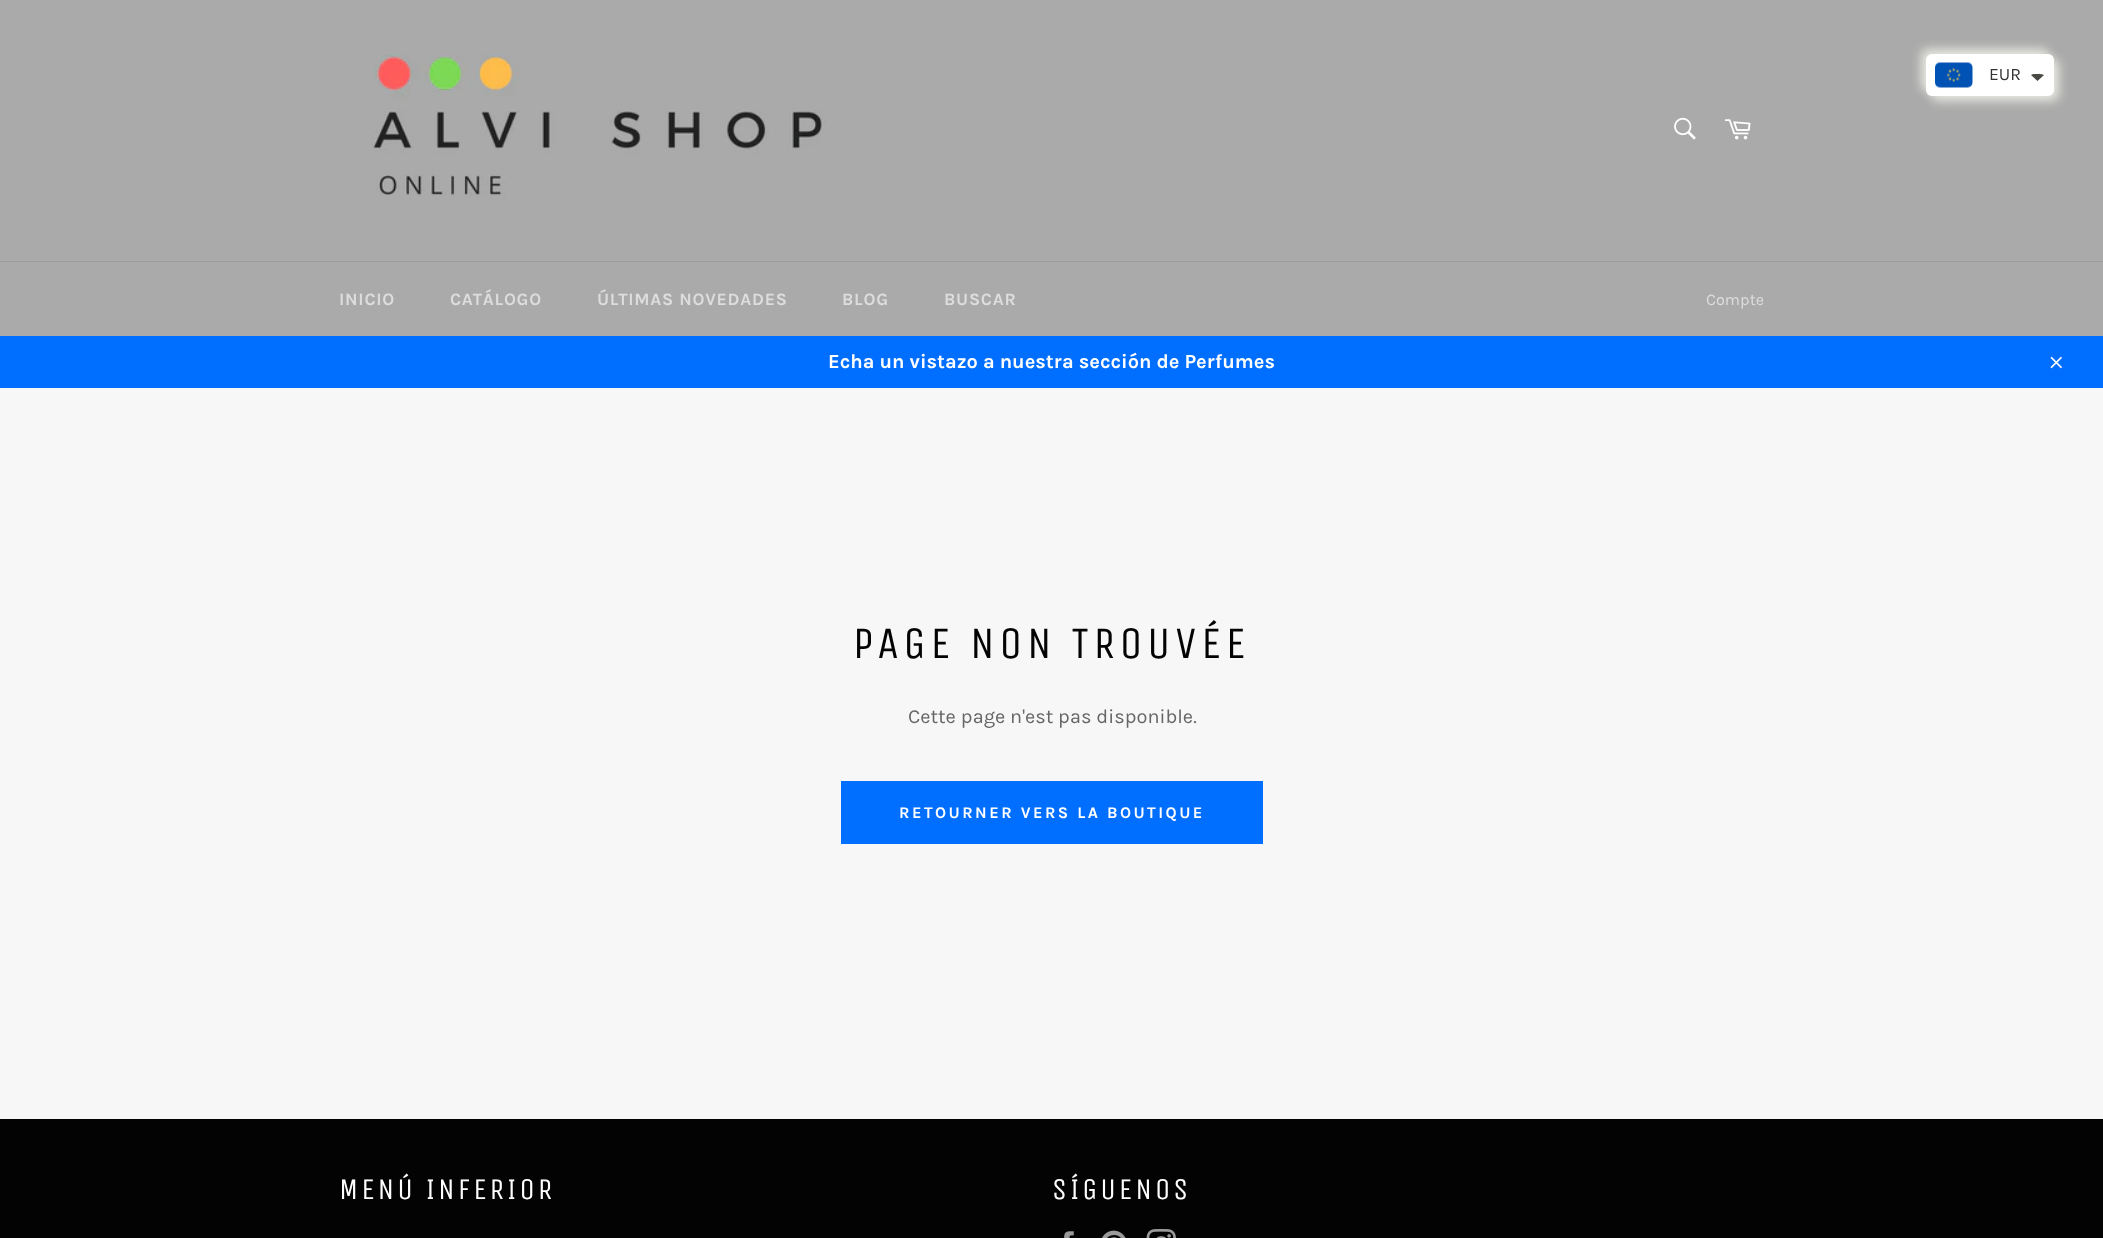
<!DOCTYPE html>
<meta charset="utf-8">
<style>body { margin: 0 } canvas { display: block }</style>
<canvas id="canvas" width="2103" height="1238"></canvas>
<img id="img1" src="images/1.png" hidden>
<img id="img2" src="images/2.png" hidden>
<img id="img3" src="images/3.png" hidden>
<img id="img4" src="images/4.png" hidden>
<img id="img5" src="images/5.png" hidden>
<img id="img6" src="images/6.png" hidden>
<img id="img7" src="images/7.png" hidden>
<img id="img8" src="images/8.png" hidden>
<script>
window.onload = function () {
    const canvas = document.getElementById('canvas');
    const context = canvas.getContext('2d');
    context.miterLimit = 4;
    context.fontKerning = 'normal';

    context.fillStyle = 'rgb(247, 247, 247)';
    context.fillRect(0, 0, 2103, 1238);
    context.fillStyle = 'rgb(169, 170, 169)';
    context.fillRect(0, 0, 2103, 261);
    context.fillStyle = 'rgb(232, 232, 226)';
    context.filter = 'blur(5.5px)';
    context.beginPath();
    context.roundRect(1921, 49, 128, 42, 6);
    context.fill();
    context.filter = 'none';
    context.filter = 'blur(5.5px)';
    context.beginPath();
    context.roundRect(1931, 59, 128, 42, 6);
    context.fill();
    context.filter = 'none';
    context.fillStyle = 'rgb(255, 255, 255)';
    context.beginPath();
    context.roundRect(1926, 54, 128, 42, 6);
    context.fill();
    context.drawImage(document.getElementById('img1'), 1935, 62, 38, 26);
    context.fillStyle = 'rgb(71, 73, 66)';
    context.beginPath();
    context.moveTo(2034, 74);
    context.bezierCurveTo(2036.5, 74, 2042, 73.5, 2044, 75);
    context.lineTo(2037.5, 81);
    context.lineTo(2031, 75);
    context.bezierCurveTo(2032, 74.5, 2033, 74, 2034, 74);
    context.closePath();
    context.fill();
    context.drawImage(document.getElementById('img2'), 373, 54, 452, 142);
    context.drawImage(document.getElementById('img3'), 1674, 117, 22, 23);
    context.drawImage(document.getElementById('img4'), 1724, 119, 27, 21);
    context.fillStyle = 'rgb(169, 170, 169)';
    context.fillRect(0, 262, 2103, 74);
    context.fillStyle = 'rgb(156, 157, 156)';
    context.fillRect(0, 261, 2103, 1);
    context.fillStyle = 'rgb(0, 110, 255)';
    context.fillRect(0, 336, 2103, 52);
    context.drawImage(document.getElementById('img5'), 2050, 356, 12, 13);
    context.fillRect(841, 781, 422, 63);
    context.fillStyle = 'rgb(3, 3, 3)';
    context.fillRect(0, 1119, 2103, 119);
    context.drawImage(document.getElementById('img6'), 1064, 1231, 10, 7);
    context.drawImage(document.getElementById('img7'), 1102, 1230, 24, 8);
    context.drawImage(document.getElementById('img8'), 1146, 1229, 30, 9);
    context.font = '17.5px Karla';
    context.fillStyle = 'rgb(51, 51, 51)';
    context.fillText('EUR', 1989, 80);
    context.letterSpacing = '0.75px';
    context.font = 'bold 17.5px Karla';
    context.fillStyle = 'rgb(221, 221, 221)';
    context.fillText('INICIO', 339, 305);
    context.fillText('CATÁLOGO', 450, 305);
    context.fillText('ÚLTIMAS NOVEDADES', 597, 305);
    context.fillText('BLOG', 842, 305);
    context.fillText('BUSCAR', 944, 305);
    context.letterSpacing = '0px';
    context.font = '16.25px Karla';
    context.fillText('Compte', 1706, 305);
    context.font = 'bold 20px Karla';
    context.fillStyle = 'rgb(255, 255, 255)';
    context.fillText('Echa un vistazo a nuestra sección de Perfumes', 828, 368);
    context.letterSpacing = '4.5px';
    context.font = '45px Unica One';
    context.fillStyle = 'rgb(3, 3, 3)';
    context.fillText('PAGE NON TROUVÉE', 853, 658);
    context.letterSpacing = '0px';
    context.font = '20px Karla';
    context.fillStyle = 'rgb(102, 102, 102)';
    context.fillText('Cette page n\'est pas disponible.', 908, 723);
    context.letterSpacing = '2.45px';
    context.font = 'bold 16.25px Karla';
    context.fillStyle = 'rgb(255, 255, 255)';
    context.fillText('RETOURNER VERS LA BOUTIQUE', 899, 818);
    context.letterSpacing = '3px';
    context.font = '30px Unica One';
    context.fillText('MENÚ INFERIOR', 339, 1199);
    context.fillText('SÍGUENOS', 1052, 1199);
};
</script>
